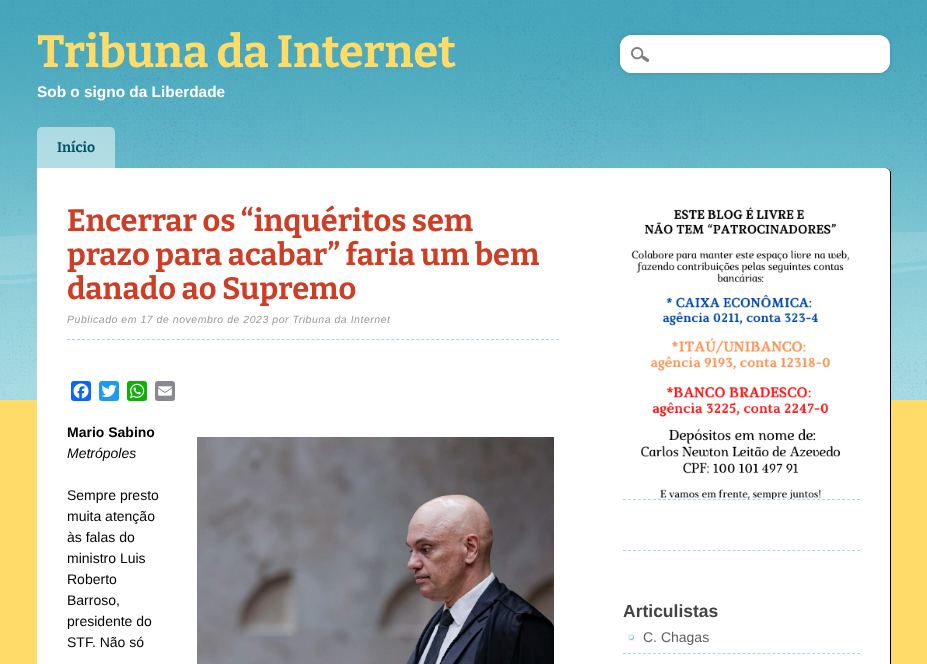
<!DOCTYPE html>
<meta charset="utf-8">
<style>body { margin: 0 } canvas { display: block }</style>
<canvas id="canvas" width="927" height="664"></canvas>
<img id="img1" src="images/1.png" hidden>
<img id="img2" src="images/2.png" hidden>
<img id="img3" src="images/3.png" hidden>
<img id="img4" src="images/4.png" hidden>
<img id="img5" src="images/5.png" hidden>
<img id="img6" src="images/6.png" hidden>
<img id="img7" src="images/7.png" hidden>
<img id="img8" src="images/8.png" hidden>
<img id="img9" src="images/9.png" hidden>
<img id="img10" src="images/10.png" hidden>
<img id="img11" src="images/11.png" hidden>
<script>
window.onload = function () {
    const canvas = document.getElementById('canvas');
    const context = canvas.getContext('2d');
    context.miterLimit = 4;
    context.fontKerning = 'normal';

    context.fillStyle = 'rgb(255, 219, 105)';
    context.fillRect(0, 0, 927, 664);
    context.drawImage(document.getElementById('img1'), 0, 0, 927, 400);
    context.fillStyle = 'rgb(65, 145, 163)';
    context.filter = 'blur(2.5px)';
    context.beginPath();
    context.roundRect(620, 35, 270, 38, 12);
    context.fill();
    context.filter = 'none';
    context.fillStyle = 'rgb(255, 255, 255)';
    context.beginPath();
    context.roundRect(620, 35, 270, 38, 12);
    context.fill();
    context.drawImage(document.getElementById('img2'), 631, 47, 19, 15);
    context.beginPath();
    context.roundRect(621.5, 36.5, 267, 35, 10.5);
    context.strokeStyle = 'rgb(255, 255, 255)';
    context.lineWidth = 3;
    context.stroke();
    context.drawImage(document.getElementById('img3'), 37, 168, 854, 5);
    context.drawImage(document.getElementById('img4'), 37, 127, 78, 41);
    context.fillStyle = 'rgb(0, 0, 0)';
    context.beginPath();
    context.moveTo(39, 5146);
    context.bezierCurveTo(40, 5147, 41, 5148, 43, 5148);
    context.lineTo(886, 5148);
    context.bezierCurveTo(889, 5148, 891, 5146, 891, 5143);
    context.lineTo(891, 173);
    context.lineTo(890, 173);
    context.lineTo(890, 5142);
    context.bezierCurveTo(890, 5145, 888, 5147, 885, 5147);
    context.lineTo(42, 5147);
    context.bezierCurveTo(41, 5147, 40, 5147, 39, 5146);
    context.closePath();
    context.fill();
    context.fillStyle = 'rgb(255, 255, 255)';
    context.fillRect(37, 173, 853, 491);
    context.beginPath();
    context.moveTo(67, 339.5);
    context.lineTo(559, 339.5);
    context.strokeStyle = 'rgb(163, 218, 225)';
    context.lineWidth = 1;
    context.setLineDash([3, 1.99]);
    context.stroke();
    context.fillStyle = 'rgb(8, 102, 255)';
    context.beginPath();
    context.roundRect(71, 381, 20, 20, 3);
    context.fill();
    context.drawImage(document.getElementById('img5'), 73, 383, 16, 16);
    context.fillStyle = 'rgb(29, 155, 240)';
    context.beginPath();
    context.roundRect(99, 381, 20, 20, 3);
    context.fill();
    context.drawImage(document.getElementById('img6'), 101, 384, 16, 14);
    context.fillStyle = 'rgb(18, 175, 10)';
    context.beginPath();
    context.roundRect(127, 381, 20, 20, 3);
    context.fill();
    context.drawImage(document.getElementById('img7'), 129, 383, 16, 16);
    context.fillStyle = 'rgb(136, 137, 144)';
    context.beginPath();
    context.roundRect(155, 381, 20, 20, 3);
    context.fill();
    context.drawImage(document.getElementById('img8'), 158, 386, 14, 10);
    context.drawImage(document.getElementById('img9'), 197, 437, 357, 227);
    context.beginPath();
    context.moveTo(623, 499.5);
    context.lineTo(860, 499.5);
    context.setLineDash([3, 1.98]);
    context.stroke();
    context.drawImage(document.getElementById('img10'), 631, 207, 219, 292);
    context.beginPath();
    context.moveTo(623, 550.5);
    context.lineTo(860, 550.5);
    context.stroke();
    context.drawImage(document.getElementById('img11'), 628, 634, 9, 8);
    context.beginPath();
    context.moveTo(623, 653.5);
    context.lineTo(860, 653.5);
    context.stroke();
    context.font = '100 45px Bitter';
    context.fillStyle = 'rgb(255, 219, 104)';
    context.fillText('Tribuna da Internet', 37, 67);
    context.font = 'bold 15.4px Liberation Sans';
    context.fillStyle = 'rgb(255, 255, 255)';
    context.fillText('Sob o signo da Liberdade', 37, 97);
    context.font = '100 14px Bitter';
    context.fillStyle = 'rgb(0, 86, 106)';
    context.fillText('Início', 57, 152);
    context.font = '100 30.75px Bitter';
    context.fillStyle = 'rgb(205, 62, 37)';
    context.fillText('Encerrar os “inquéritos sem', 67, 231);
    context.fillText('prazo para acabar” faria um bem', 67, 265);
    context.fillText('danado ao Supremo', 67, 299);
    context.letterSpacing = '0.53px';
    context.font = 'italic 10.5px Liberation Sans';
    context.fillStyle = 'rgb(153, 153, 153)';
    context.fillText('Publicado em 17 de novembro de 2023 por Tribuna da Internet', 67, 323);
    context.letterSpacing = '0px';
    context.font = 'bold 14px Liberation Sans';
    context.fillStyle = 'rgb(0, 0, 0)';
    context.fillText('Mario Sabino', 67, 437);
    context.font = 'italic 14px Liberation Sans';
    context.fillText('Metrópoles', 67, 458);
    context.font = '14px Liberation Sans';
    context.fillText('Sempre presto', 67, 500);
    context.fillText('muita atenção', 67, 521);
    context.fillText('às falas do', 67, 542);
    context.fillText('ministro Luis', 67, 563);
    context.fillText('Roberto', 67, 584);
    context.fillText('Barroso,', 67, 605);
    context.fillText('presidente do', 67, 626);
    context.fillText('STF. Não só', 67, 647);
    context.font = 'bold 17.5px Liberation Sans';
    context.fillStyle = 'rgb(68, 68, 68)';
    context.fillText('Articulistas', 623, 617);
    context.font = '14px Liberation Sans';
    context.fillStyle = 'rgb(94, 94, 94)';
    context.fillText('C. Chagas', 643, 642);
};
</script>
